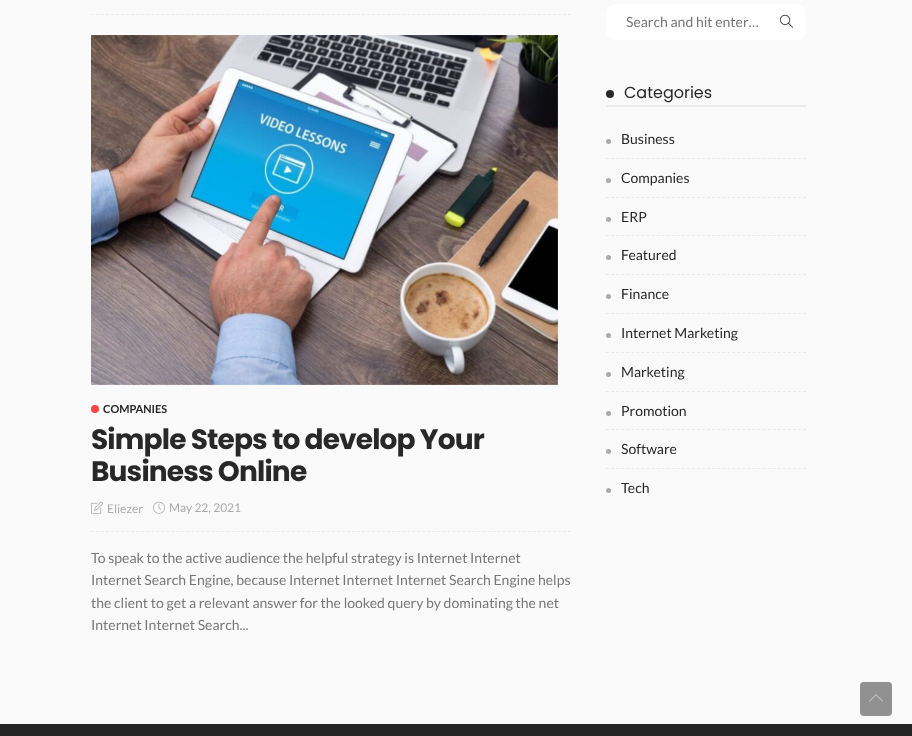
<!DOCTYPE html>
<meta charset="utf-8">
<style>body { margin: 0 } canvas { display: block }</style>
<canvas id="canvas" width="912" height="736"></canvas>
<img id="img1" src="images/1.png" hidden>
<img id="img2" src="images/2.png" hidden>
<img id="img3" src="images/3.png" hidden>
<img id="img4" src="images/4.png" hidden>
<img id="img5" src="images/5.png" hidden>
<script>
window.onload = function () {
    const canvas = document.getElementById('canvas');
    const context = canvas.getContext('2d');
    context.miterLimit = 4;
    context.fontKerning = 'normal';

    context.fillStyle = 'rgb(250, 250, 250)';
    context.fillRect(0, 0, 912, 736);
    context.fillStyle = 'rgb(255, 255, 255)';
    context.beginPath();
    context.roundRect(606, 4, 200, 36, 10);
    context.fill();
    context.drawImage(document.getElementById('img1'), 780, 14, 13, 14);
    context.fillStyle = 'rgb(234, 234, 234)';
    context.fillRect(606, 105, 200, 2);
    context.fillStyle = 'rgb(40, 40, 40)';
    context.beginPath();
    context.arc(610, 94, 4, 0, 2 * Math.PI);
    context.fill();
    context.beginPath();
    context.moveTo(606, 158.5);
    context.lineTo(806, 158.5);
    context.strokeStyle = 'rgb(234, 234, 234)';
    context.setLineDash([3, 2.05]);
    context.stroke();
    context.fillStyle = 'rgb(170, 170, 170)';
    context.beginPath();
    context.arc(608.5, 141.5, 2.5, 0, 2 * Math.PI);
    context.fill();
    context.beginPath();
    context.moveTo(606, 197.5);
    context.lineTo(806, 197.5);
    context.stroke();
    context.beginPath();
    context.arc(608.5, 180.5, 2.5, 0, 2 * Math.PI);
    context.fill();
    context.beginPath();
    context.moveTo(606, 235.5);
    context.lineTo(806, 235.5);
    context.stroke();
    context.beginPath();
    context.arc(608.5, 219.5, 2.5, 0, 2 * Math.PI);
    context.fill();
    context.beginPath();
    context.moveTo(606, 274.5);
    context.lineTo(806, 274.5);
    context.stroke();
    context.beginPath();
    context.arc(608.5, 257.5, 2.5, 0, 2 * Math.PI);
    context.fill();
    context.beginPath();
    context.moveTo(606, 313.5);
    context.lineTo(806, 313.5);
    context.stroke();
    context.beginPath();
    context.arc(608.5, 296.5, 2.5, 0, 2 * Math.PI);
    context.fill();
    context.beginPath();
    context.moveTo(606, 352.5);
    context.lineTo(806, 352.5);
    context.stroke();
    context.beginPath();
    context.arc(608.5, 335.5, 2.5, 0, 2 * Math.PI);
    context.fill();
    context.beginPath();
    context.moveTo(606, 391.5);
    context.lineTo(806, 391.5);
    context.stroke();
    context.beginPath();
    context.arc(608.5, 374.5, 2.5, 0, 2 * Math.PI);
    context.fill();
    context.beginPath();
    context.moveTo(606, 429.5);
    context.lineTo(806, 429.5);
    context.stroke();
    context.beginPath();
    context.arc(608.5, 413.5, 2.5, 0, 2 * Math.PI);
    context.fill();
    context.beginPath();
    context.moveTo(606, 468.5);
    context.lineTo(806, 468.5);
    context.stroke();
    context.beginPath();
    context.arc(608.5, 451.5, 2.5, 0, 2 * Math.PI);
    context.fill();
    context.beginPath();
    context.arc(608.5, 490.5, 2.5, 0, 2 * Math.PI);
    context.fill();
    context.beginPath();
    context.moveTo(91, 14.5);
    context.lineTo(571, 14.5);
    context.setLineDash([3, 2.02]);
    context.stroke();
    context.drawImage(document.getElementById('img2'), 91, 35, 467, 350);
    context.fillStyle = 'rgb(255, 69, 69)';
    context.beginPath();
    context.arc(95, 409, 4, 0, 2 * Math.PI);
    context.fill();
    context.drawImage(document.getElementById('img3'), 91, 501, 12, 13);
    context.drawImage(document.getElementById('img4'), 153, 501, 12, 13);
    context.beginPath();
    context.moveTo(91, 531.5);
    context.lineTo(571, 531.5);
    context.stroke();
    context.fillStyle = 'rgb(36, 36, 36)';
    context.fillRect(0, 724, 912, 12);
    context.fillStyle = 'rgb(145, 145, 145)';
    context.beginPath();
    context.roundRect(860, 682, 32, 34, 4);
    context.fill();
    context.drawImage(document.getElementById('img5'), 869, 694, 14, 8);
    context.font = '14px Lato';
    context.fillStyle = 'rgb(119, 119, 119)';
    context.fillText('Search and hit enter…', 626, 27);
    context.font = '16px Poppins';
    context.fillStyle = 'rgb(40, 40, 40)';
    context.fillText('Categories', 624, 98);
    context.font = '14px Lato';
    context.fillText('Business', 621, 144);
    context.fillText('Companies', 621, 183);
    context.fillText('ERP', 621, 222);
    context.fillText('Featured', 621, 260);
    context.fillText('Finance', 621, 299);
    context.fillText('Internet Marketing', 621, 338);
    context.fillText('Marketing', 621, 377);
    context.fillText('Promotion', 621, 416);
    context.fillText('Software', 621, 454);
    context.fillText('Tech', 621, 493);
    context.font = 'bold 11px Lato';
    context.fillText('COMPANIES', 103, 413);
    context.letterSpacing = '-0.85px';
    context.font = 'bold 28px Poppins';
    context.fillText('Simple Steps to develop Your', 91, 449);
    context.fillText('Business Online', 91, 481);
    context.letterSpacing = '0px';
    context.font = '12px Lato';
    context.fillStyle = 'rgb(170, 170, 170)';
    context.fillText('Eliezer', 107, 513);
    context.fillText('May 22, 2021', 169, 512);
    context.font = '14px Lato';
    context.fillStyle = 'rgb(119, 119, 119)';
    context.fillText('To speak to the active audience the helpful strategy is Internet Internet', 91, 563);
    context.fillText('Internet Search Engine, because Internet Internet Internet Search Engine helps', 91, 585);
    context.fillText('the client to get a relevant answer for the looked query by dominating the net', 91, 608);
    context.fillText('Internet Internet Search...', 91, 630);
};
</script>
